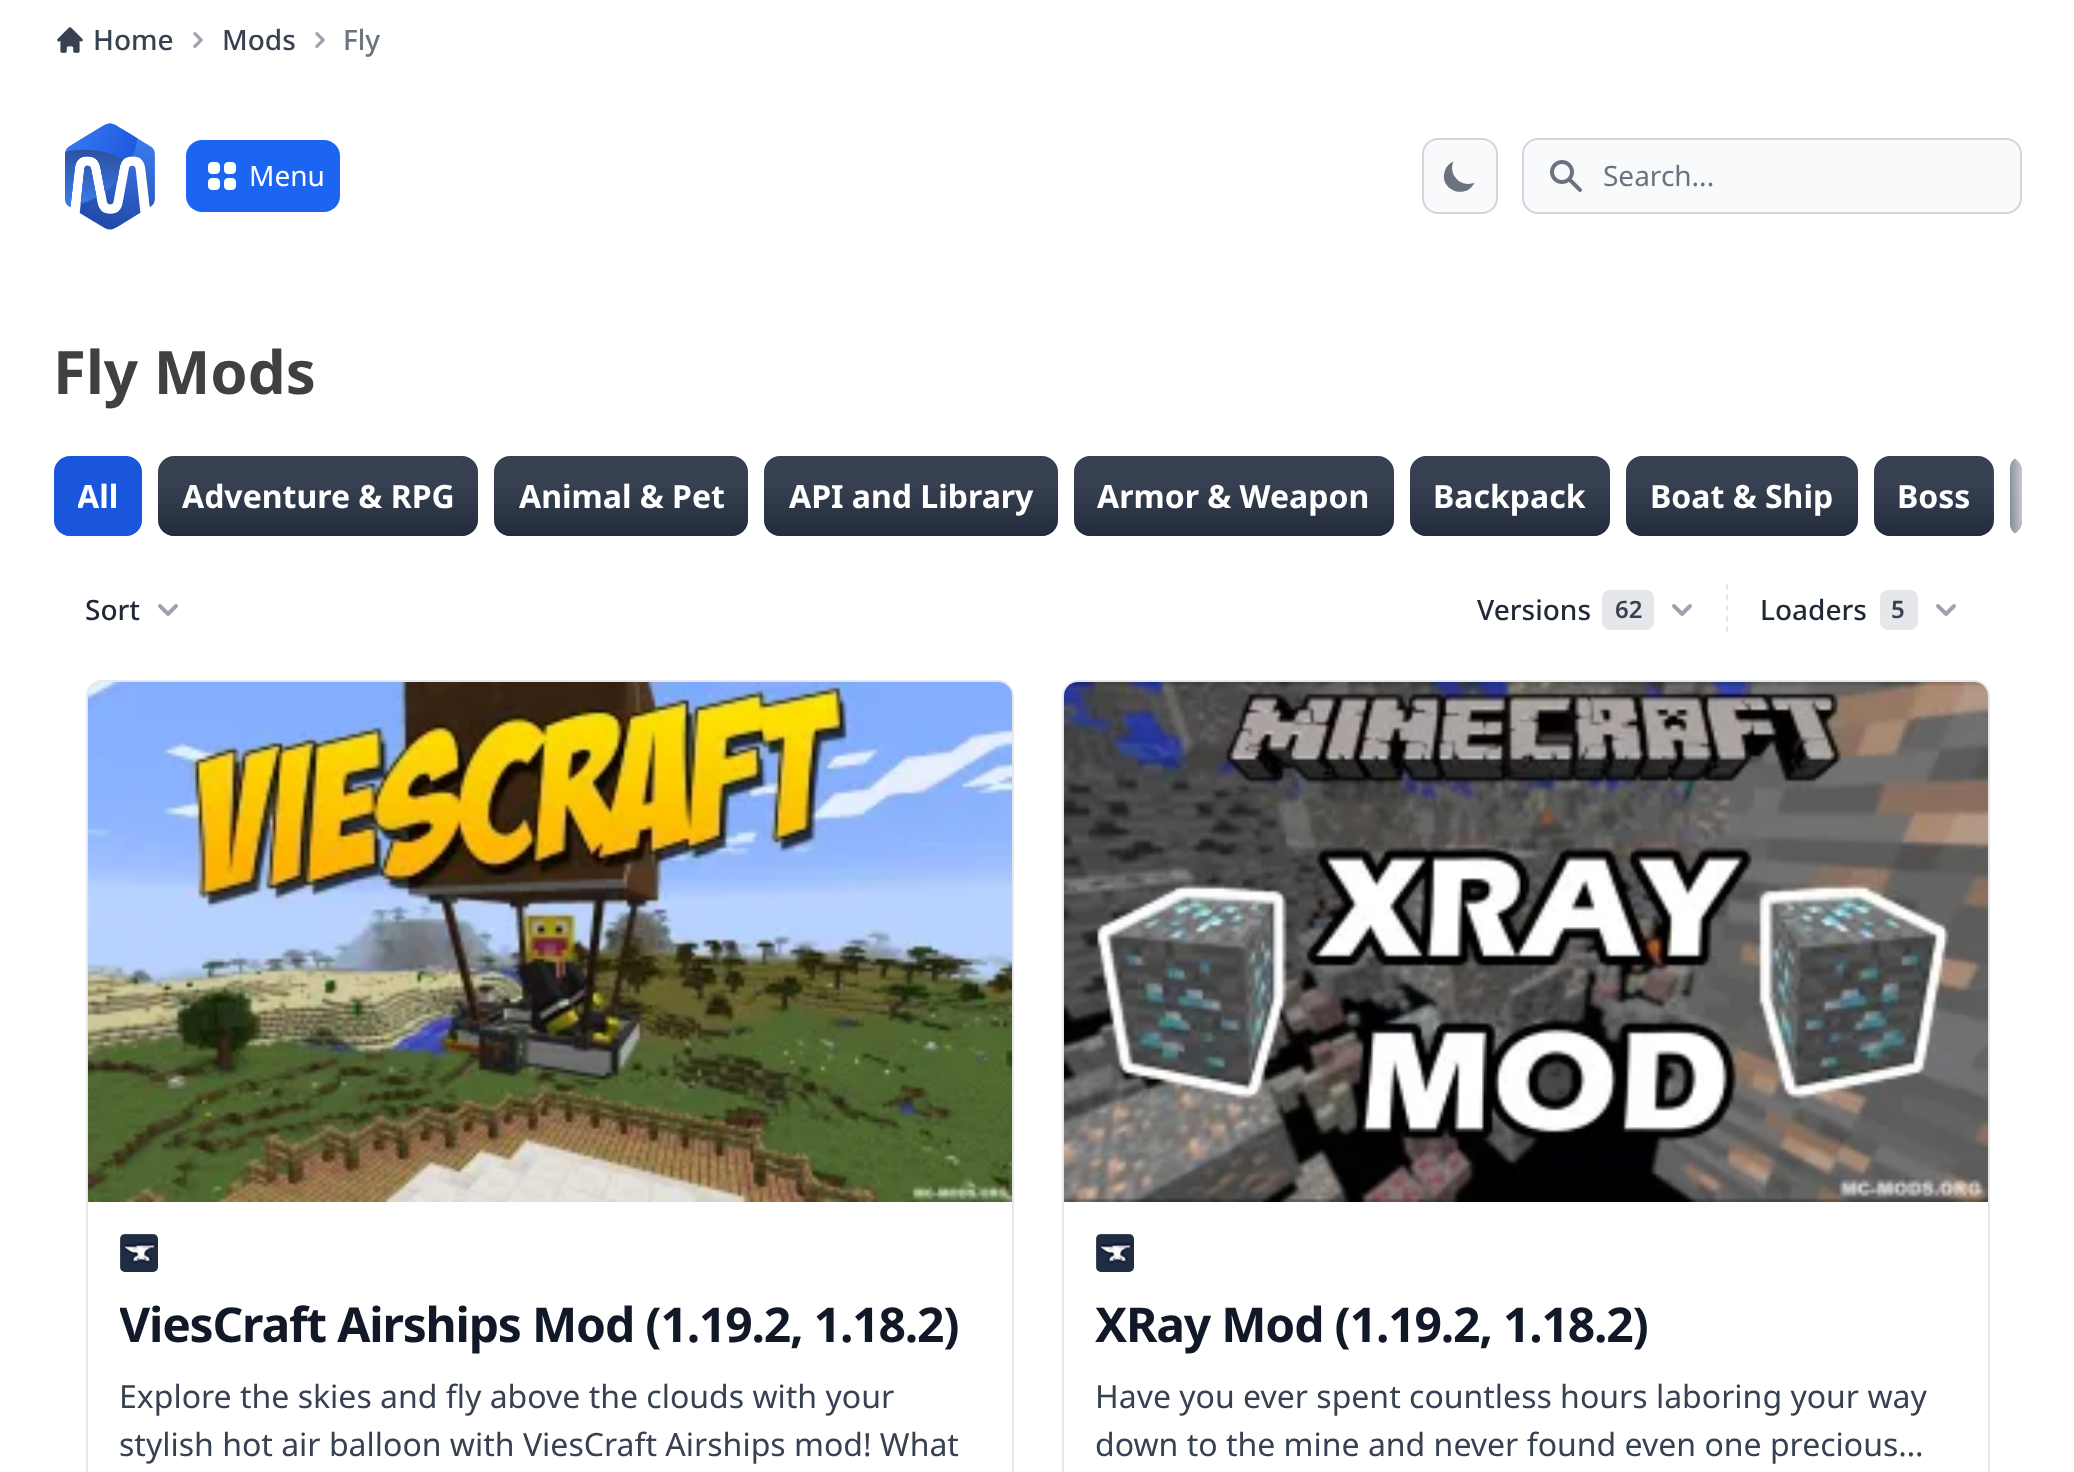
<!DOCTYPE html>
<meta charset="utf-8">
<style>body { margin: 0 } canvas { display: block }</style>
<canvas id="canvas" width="2074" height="1472"></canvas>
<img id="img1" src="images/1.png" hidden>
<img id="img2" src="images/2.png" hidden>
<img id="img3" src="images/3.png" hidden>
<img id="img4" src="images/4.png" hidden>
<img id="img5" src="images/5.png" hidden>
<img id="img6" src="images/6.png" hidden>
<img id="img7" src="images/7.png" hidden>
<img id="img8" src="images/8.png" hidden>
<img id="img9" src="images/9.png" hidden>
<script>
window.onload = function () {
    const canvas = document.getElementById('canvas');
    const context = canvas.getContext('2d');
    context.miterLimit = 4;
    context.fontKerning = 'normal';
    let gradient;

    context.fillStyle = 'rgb(255, 255, 255)';
    context.fillRect(0, 0, 2074, 1472);
    context.drawImage(document.getElementById('img1'), 57, 27, 26, 26);
    context.drawImage(document.getElementById('img2'), 193, 32, 10, 16);
    context.drawImage(document.getElementById('img2'), 315, 32, 10, 16);
    context.drawImage(document.getElementById('img3'), 65, 123, 90, 107);
    context.fillStyle = 'rgb(28, 100, 242)';
    context.beginPath();
    context.roundRect(186, 140, 154, 72, 16);
    context.fill();
    context.drawImage(document.getElementById('img4'), 208, 162, 28, 28);
    context.fillStyle = 'rgb(249, 250, 251)';
    context.beginPath();
    context.roundRect(1423, 139, 74, 74, 15);
    context.fill();
    context.strokeStyle = 'rgb(209, 213, 219)';
    context.lineWidth = 2;
    context.stroke();
    context.fillStyle = 'rgb(107, 114, 128)';
    context.beginPath();
    context.moveTo(1474.5, 182.5);
    context.bezierCurveTo(1461.5, 188.5, 1447.5, 174.5, 1453.5, 161.5);
    context.bezierCurveTo(1449.5, 163, 1446.5, 166.5, 1445, 170.5);
    context.bezierCurveTo(1438, 189.5, 1466, 201, 1474.5, 182.5);
    context.closePath();
    context.fill();
    context.fillStyle = 'rgb(249, 250, 251)';
    context.beginPath();
    context.roundRect(1523, 139, 498, 74, 15);
    context.fill();
    context.stroke();
    context.drawImage(document.getElementById('img5'), 1550, 160, 32, 32);
    context.fillStyle = 'rgb(26, 86, 219)';
    context.beginPath();
    context.roundRect(54, 456, 88, 80, 16);
    context.fill();
    gradient = context.createLinearGradient(98, 536, 98, 482);
    gradient.addColorStop(0, 'rgba(26, 86, 219, 0.5)');
    gradient.addColorStop(1, 'rgba(26, 86, 219, 0)');
    context.fillStyle = gradient;
    context.beginPath();
    context.roundRect(54, 482, 88, 54, [0, 0, 16, 16]);
    context.fill();
    context.fillStyle = 'rgb(55, 65, 81)';
    context.beginPath();
    context.roundRect(158, 456, 320, 80, 16);
    context.fill();
    gradient = context.createLinearGradient(318, 536, 318, 482);
    gradient.addColorStop(0, 'rgba(17, 24, 39, 0.5)');
    gradient.addColorStop(1, 'rgba(17, 24, 39, 0)');
    context.fillStyle = gradient;
    context.beginPath();
    context.roundRect(158, 482, 320, 54, [0, 0, 16, 16]);
    context.fill();
    context.fillStyle = 'rgb(55, 65, 81)';
    context.beginPath();
    context.roundRect(494, 456, 254, 80, 16);
    context.fill();
    gradient = context.createLinearGradient(621, 536, 621, 482);
    gradient.addColorStop(0, 'rgba(17, 24, 39, 0.5)');
    gradient.addColorStop(1, 'rgba(17, 24, 39, 0)');
    context.fillStyle = gradient;
    context.beginPath();
    context.roundRect(494, 482, 254, 54, [0, 0, 16, 16]);
    context.fill();
    context.fillStyle = 'rgb(55, 65, 81)';
    context.beginPath();
    context.roundRect(764, 456, 294, 80, 16);
    context.fill();
    gradient = context.createLinearGradient(911, 536, 911, 482);
    gradient.addColorStop(0, 'rgba(17, 24, 39, 0.5)');
    gradient.addColorStop(1, 'rgba(17, 24, 39, 0)');
    context.fillStyle = gradient;
    context.beginPath();
    context.roundRect(764, 482, 294, 54, [0, 0, 16, 16]);
    context.fill();
    context.fillStyle = 'rgb(55, 65, 81)';
    context.beginPath();
    context.roundRect(1074, 456, 320, 80, 16);
    context.fill();
    gradient = context.createLinearGradient(1234, 536, 1234, 482);
    gradient.addColorStop(0, 'rgba(17, 24, 39, 0.5)');
    gradient.addColorStop(1, 'rgba(17, 24, 39, 0)');
    context.fillStyle = gradient;
    context.beginPath();
    context.roundRect(1074, 482, 320, 54, [0, 0, 16, 16]);
    context.fill();
    context.fillStyle = 'rgb(55, 65, 81)';
    context.beginPath();
    context.roundRect(1410, 456, 200, 80, 16);
    context.fill();
    gradient = context.createLinearGradient(1510, 536, 1510, 482);
    gradient.addColorStop(0, 'rgba(17, 24, 39, 0.5)');
    gradient.addColorStop(1, 'rgba(17, 24, 39, 0)');
    context.fillStyle = gradient;
    context.beginPath();
    context.roundRect(1410, 482, 200, 54, [0, 0, 16, 16]);
    context.fill();
    context.fillStyle = 'rgb(55, 65, 81)';
    context.beginPath();
    context.roundRect(1626, 456, 232, 80, 16);
    context.fill();
    gradient = context.createLinearGradient(1742, 536, 1742, 482);
    gradient.addColorStop(0, 'rgba(17, 24, 39, 0.5)');
    gradient.addColorStop(1, 'rgba(17, 24, 39, 0)');
    context.fillStyle = gradient;
    context.beginPath();
    context.roundRect(1626, 482, 232, 54, [0, 0, 16, 16]);
    context.fill();
    context.fillStyle = 'rgb(55, 65, 81)';
    context.beginPath();
    context.roundRect(1874, 456, 120, 80, 16);
    context.fill();
    gradient = context.createLinearGradient(1934, 536, 1934, 482);
    gradient.addColorStop(0, 'rgba(17, 24, 39, 0.5)');
    gradient.addColorStop(1, 'rgba(17, 24, 39, 0)');
    context.fillStyle = gradient;
    context.beginPath();
    context.roundRect(1874, 482, 120, 54, [0, 0, 16, 16]);
    context.fill();
    context.save();
    context.beginPath();
    context.roundRect(54, 456, 1968, 80, 16);
    context.clip();
    context.fillStyle = 'rgb(55, 65, 81)';
    context.beginPath();
    context.roundRect(2010, 456, 12, 80, [16, 0, 0, 16]);
    context.fill();
    context.restore();
    context.save();
    context.beginPath();
    context.roundRect(54, 456, 1968, 80, 16);
    context.clip();
    context.beginPath();
    context.roundRect(2010, 456, 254, 80, 16);
    context.clip();
    gradient = context.createLinearGradient(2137, 536, 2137, 482);
    gradient.addColorStop(0, 'rgba(17, 24, 39, 0.5)');
    gradient.addColorStop(1, 'rgba(17, 24, 39, 0)');
    context.fillStyle = gradient;
    context.fillRect(2010, 484, 12, 49);
    context.restore();
    gradient = context.createLinearGradient(1992, 496, 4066, 496);
    gradient.addColorStop(0, 'rgba(255, 255, 255, 0)');
    gradient.addColorStop(0.02, 'rgb(255, 255, 255)');
    context.fillStyle = gradient;
    context.beginPath();
    context.roundRect(1992, 456, 30, 80, [0, 16, 16, 0]);
    context.fill();
    context.drawImage(document.getElementById('img6'), 158, 604, 20, 12);
    context.fillStyle = 'rgb(229, 231, 235)';
    context.beginPath();
    context.roundRect(1602, 590, 52, 40, 8);
    context.fill();
    context.drawImage(document.getElementById('img6'), 1672, 604, 20, 12);
    context.beginPath();
    context.moveTo(1727, 584);
    context.lineTo(1727, 632);
    context.strokeStyle = 'rgb(229, 231, 235)';
    context.setLineDash([6, 4.5]);
    context.stroke();
    context.beginPath();
    context.roundRect(1880, 590, 38, 40, 8);
    context.fill();
    context.drawImage(document.getElementById('img6'), 1936, 604, 20, 12);
    context.beginPath();
    context.roundRect(87, 681, 926, 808, 15);
    context.setLineDash([]);
    context.stroke();
    context.drawImage(document.getElementById('img7'), 88, 682, 924, 520);
    context.drawImage(document.getElementById('img8'), 120, 1234, 38, 38);
    context.beginPath();
    context.roundRect(1063, 681, 926, 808, 15);
    context.stroke();
    context.drawImage(document.getElementById('img9'), 1064, 682, 924, 520);
    context.drawImage(document.getElementById('img8'), 1096, 1234, 38, 38);
    context.font = '500 28px Noto Sans';
    context.fillStyle = 'rgb(55, 65, 81)';
    context.fillText('Home', 93, 50);
    context.fillText('Mods', 222, 50);
    context.fillStyle = 'rgb(107, 114, 128)';
    context.fillText('Fly', 343, 50);
    context.font = '28px Noto Sans';
    context.fillStyle = 'rgb(255, 255, 255)';
    context.fillText('Menu', 249, 186);
    context.fillStyle = 'rgb(107, 114, 128)';
    context.fillText('Search...', 1603, 186);
    context.font = 'bold 60px Noto Sans';
    context.fillStyle = 'rgb(64, 64, 64)';
    context.fillText('Fly Mods', 53, 394);
    context.save();
    context.beginPath();
    context.rect(78, 472, 40, 48);
    context.clip();
    context.font = 'bold 32px Noto Sans';
    context.fillStyle = 'rgb(255, 255, 255)';
    context.fillText('All', 77, 508);
    context.restore();
    context.font = 'bold 32px Noto Sans';
    context.fillStyle = 'rgb(255, 255, 255)';
    context.fillText('Adventure & RPG', 182, 508);
    context.fillText('Animal & Pet', 519, 508);
    context.fillText('API and Library', 789, 508);
    context.fillText('Armor & Weapon', 1097, 508);
    context.fillText('Backpack', 1433, 508);
    context.fillText('Boat & Ship', 1650, 508);
    context.fillText('Boss', 1897, 508);
    context.font = '500 28px Noto Sans';
    context.fillStyle = 'rgb(31, 41, 55)';
    context.fillText('Sort', 85, 620);
    context.fillText('Versions', 1477, 620);
    context.font = '600 24px Noto Sans';
    context.fillStyle = 'rgb(55, 65, 81)';
    context.fillText('62', 1615, 618);
    context.font = '500 28px Noto Sans';
    context.fillStyle = 'rgb(31, 41, 55)';
    context.fillText('Loaders', 1760, 620);
    context.font = '600 24px Noto Sans';
    context.fillStyle = 'rgb(55, 65, 81)';
    context.fillText('5', 1891, 618);
    context.save();
    context.beginPath();
    context.rect(120, 1292, 860, 64);
    context.clip();
    context.letterSpacing = '-1.2px';
    context.font = 'bold 48px Noto Sans';
    context.fillStyle = 'rgb(17, 24, 39)';
    context.fillText('ViesCraft Airships Mod (1.19.2, 1.18.2)', 119, 1342);
    context.restore();
    context.font = '32px Noto Sans';
    context.fillText('Explore the skies and fly above the clouds with your', 119, 1408);
    context.fillText('stylish hot air balloon with ViesCraft Airships mod! What', 119, 1456);
    context.letterSpacing = '-1.2px';
    context.font = 'bold 48px Noto Sans';
    context.fillStyle = 'rgb(17, 24, 39)';
    context.fillText('XRay Mod (1.19.2, 1.18.2)', 1095, 1342);
    context.letterSpacing = '0px';
    context.font = '32px Noto Sans';
    context.fillStyle = 'rgb(55, 65, 81)';
    context.fillText('Have you ever spent countless hours laboring your way', 1095, 1408);
    context.fillText('down to the mine and never found even one precious…', 1095, 1456);
};
</script>
